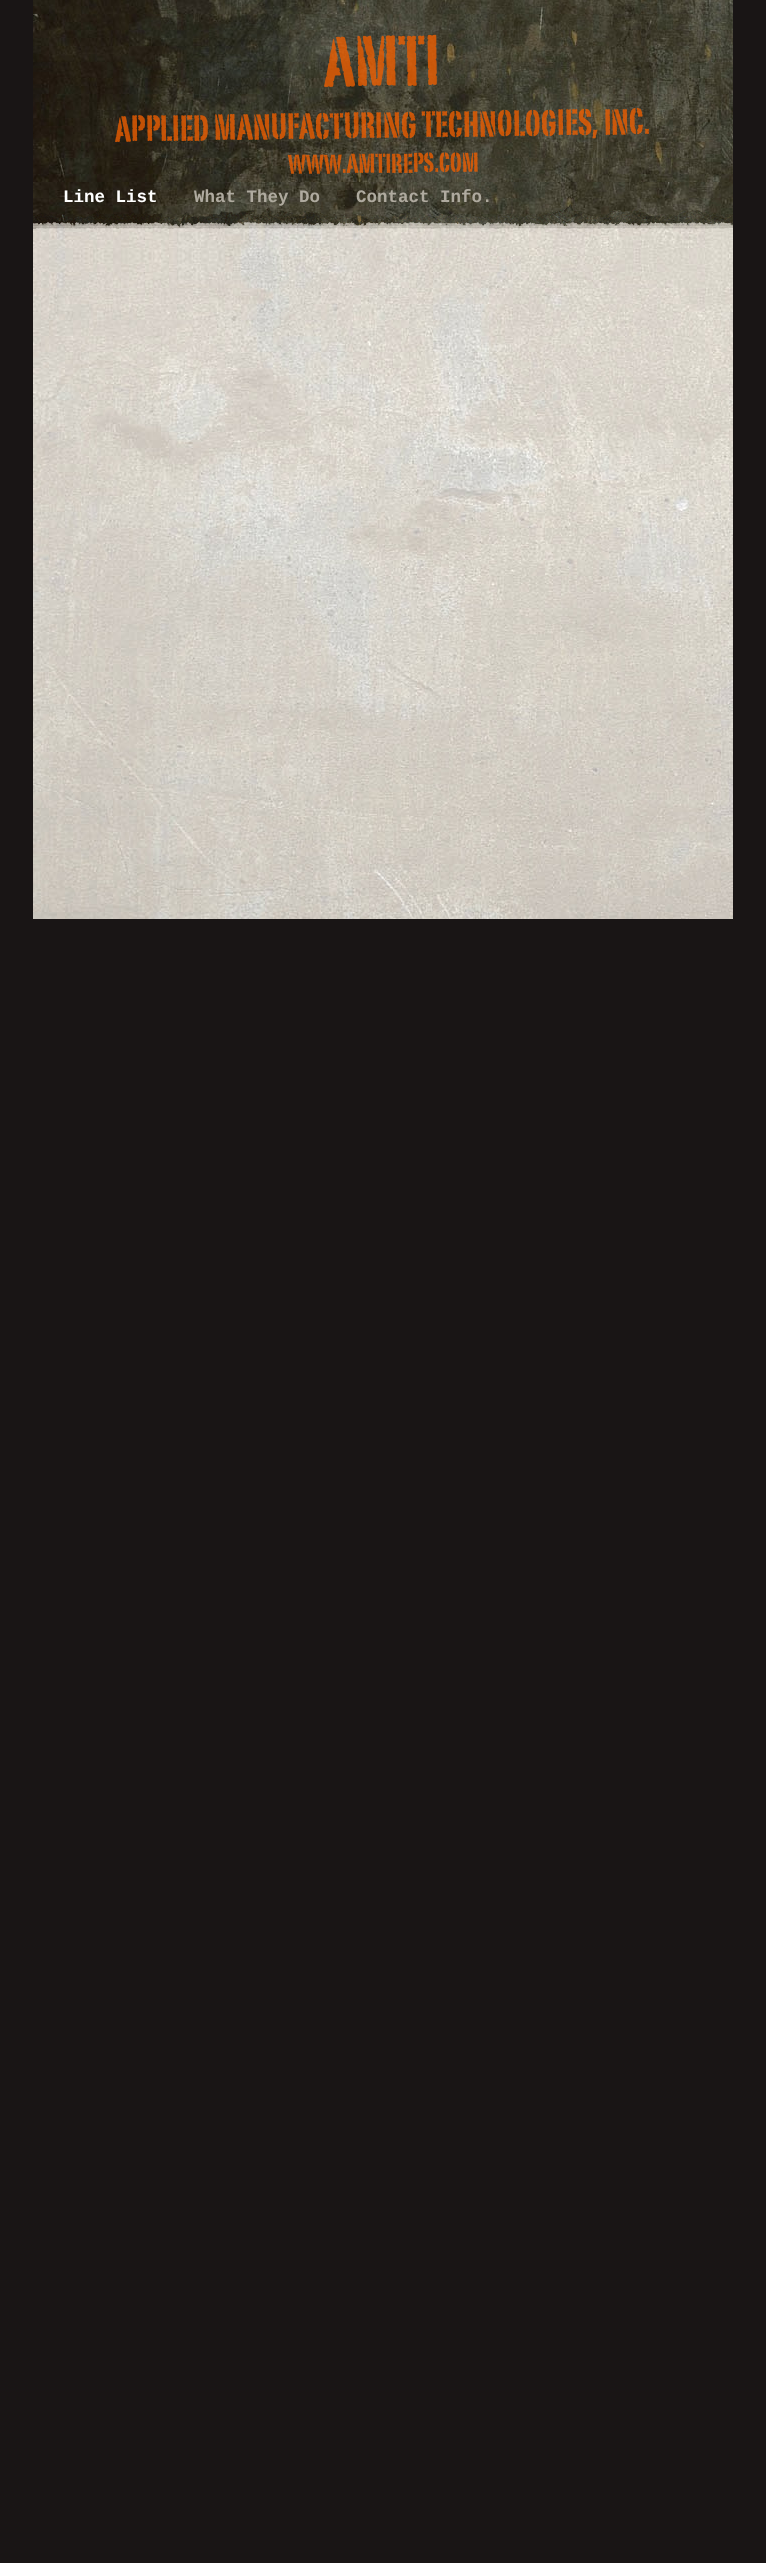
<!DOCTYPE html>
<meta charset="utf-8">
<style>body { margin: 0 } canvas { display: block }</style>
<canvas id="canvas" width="766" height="2563"></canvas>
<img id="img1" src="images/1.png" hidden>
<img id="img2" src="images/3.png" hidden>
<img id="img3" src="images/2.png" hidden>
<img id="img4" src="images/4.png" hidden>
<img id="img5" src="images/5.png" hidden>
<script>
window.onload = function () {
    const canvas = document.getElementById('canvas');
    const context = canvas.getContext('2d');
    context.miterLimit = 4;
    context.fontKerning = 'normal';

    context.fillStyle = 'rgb(25, 21, 21)';
    context.fillRect(0, 0, 766, 2563);
    context.drawImage(document.getElementById('img1'), 33, 219, 700, 700);
    context.drawImage(document.getElementById('img2'), 33, 0, 700, 182);
    context.drawImage(document.getElementById('img3'), 115, 34, 534, 140);
    context.drawImage(document.getElementById('img4'), 33, 182, 700, 37);
    context.font = 'bold 17.5px Liberation Mono';
    context.fillStyle = 'rgb(255, 255, 255)';
    context.fillText('Line List', 63, 202);
    context.fillStyle = 'rgb(175, 170, 159)';
    context.fillText('What They Do', 194, 202);
    context.fillText('Contact Info.', 356, 202);
    context.drawImage(document.getElementById('img5'), 33, 204, 700, 25);
};
</script>
